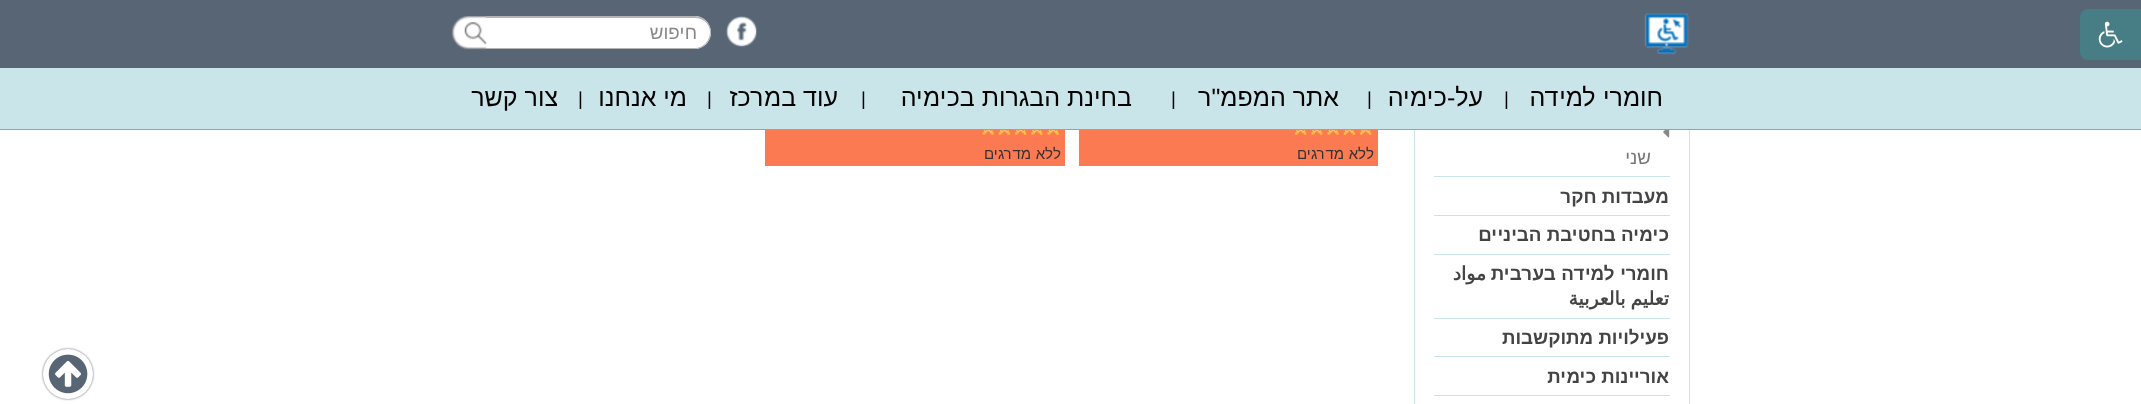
<!DOCTYPE html>
<meta charset="utf-8">
<style>body { margin: 0 } canvas { display: block }</style>
<canvas id="canvas" width="2141" height="404"></canvas>
<img id="img1" src="images/1.png" hidden>
<img id="img2" src="images/2.png" hidden>
<img id="img3" src="images/3.png" hidden>
<img id="img4" src="images/4.png" hidden>
<img id="img5" src="images/5.png" hidden>
<img id="img6" src="images/6.png" hidden>
<img id="img7" src="images/7.png" hidden>
<img id="img8" src="images/8.png" hidden>
<img id="img9" src="images/9.png" hidden>
<img id="img10" src="images/10.png" hidden>
<img id="img11" src="images/11.png" hidden>
<script>
window.onload = function () {
    const canvas = document.getElementById('canvas');
    const context = canvas.getContext('2d');
    context.miterLimit = 4;
    context.fontKerning = 'normal';

    context.fillStyle = 'rgb(255, 255, 255)';
    context.fillRect(0, 0, 2141, 404);
    context.strokeStyle = 'rgb(201, 229, 233)';
    context.strokeRect(1414.5, -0.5, 275, 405);
    context.fillStyle = 'rgb(88, 101, 117)';
    context.fillRect(0, 0, 2141, 68);
    context.fillStyle = 'rgb(71, 125, 133)';
    context.beginPath();
    context.moveTo(2088, 9);
    context.lineTo(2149, 9);
    context.lineTo(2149, 60);
    context.lineTo(2088, 60);
    context.bezierCurveTo(2083.5, 60, 2080, 56.5, 2080, 52);
    context.lineTo(2080, 17);
    context.bezierCurveTo(2080, 12.5, 2083.5, 9, 2088, 9);
    context.closePath();
    context.fill();
    context.drawImage(document.getElementById('img1'), 2098, 21, 25, 27);
    context.drawImage(document.getElementById('img2'), 1644, 13, 45, 42);
    context.drawImage(document.getElementById('img3'), 726, 16, 31, 31);
    context.fillStyle = 'rgb(255, 255, 255)';
    context.beginPath();
    context.roundRect(486, 16, 225, 33, [0, 16.5, 16.5, 0]);
    context.fill();
    context.fillStyle = 'rgb(180, 180, 180)';
    context.beginPath();
    context.moveTo(486, 16);
    context.lineTo(695, 16);
    context.bezierCurveTo(704, 16, 711, 24, 711, 32);
    context.bezierCurveTo(711, 41, 704, 49, 695, 49);
    context.lineTo(486, 49);
    context.closePath();
    context.moveTo(486, 18);
    context.lineTo(695, 18);
    context.bezierCurveTo(703, 18, 710, 24, 710, 32);
    context.bezierCurveTo(710, 41, 703, 48, 695, 48);
    context.lineTo(486, 48);
    context.closePath();
    context.fill('evenodd');
    context.drawImage(document.getElementById('img4'), 452, 16, 35, 34);
    context.fillStyle = 'rgb(201, 229, 233)';
    context.fillRect(0, 68, 2141, 61);
    context.fillStyle = 'rgb(144, 165, 175)';
    context.fillRect(0, 129, 2141, 1);
    context.fillStyle = 'rgb(201, 229, 233)';
    context.fillRect(1434, 176, 236, 1);
    context.drawImage(document.getElementById('img5'), 1663, 130, 7, 8);
    context.fillRect(1434, 215, 236, 1);
    context.fillRect(1434, 254, 236, 1);
    context.fillRect(1434, 318, 236, 1);
    context.fillRect(1434, 356, 236, 1);
    context.fillRect(1434, 395, 236, 1);
    context.fillStyle = 'rgb(252, 122, 82)';
    context.fillRect(1079, 130, 299, 36);
    context.drawImage(document.getElementById('img6'), 1359, 130, 13, 5);
    context.drawImage(document.getElementById('img7'), 1343, 130, 13, 5);
    context.drawImage(document.getElementById('img8'), 1327, 130, 12, 5);
    context.drawImage(document.getElementById('img9'), 1311, 130, 12, 5);
    context.drawImage(document.getElementById('img6'), 1294, 130, 13, 5);
    context.fillRect(765, 130, 300, 36);
    context.drawImage(document.getElementById('img10'), 1047, 130, 12, 5);
    context.drawImage(document.getElementById('img9'), 1031, 130, 12, 5);
    context.drawImage(document.getElementById('img6'), 1014, 130, 13, 5);
    context.drawImage(document.getElementById('img7'), 998, 130, 13, 5);
    context.drawImage(document.getElementById('img10'), 982, 130, 12, 5);
    context.fillStyle = 'rgb(88, 101, 117)';
    context.filter = 'blur(1px)';
    context.beginPath();
    context.roundRect(43, 349, 50, 50, 25);
    context.fill();
    context.filter = 'none';
    context.fillStyle = 'rgb(255, 255, 255)';
    context.beginPath();
    context.arc(68, 374, 25, 0, 2 * Math.PI);
    context.fill();
    context.drawImage(document.getElementById('img11'), 48, 354, 40, 40);
    context.direction = 'rtl';
    context.font = '18.75px Arimo';
    context.fillStyle = 'rgb(136, 136, 136)';
    context.fillText('חיפוש', 697, 39);
    context.font = '25px Arimo';
    context.fillStyle = 'rgb(0, 0, 0)';
    context.fillText('חומרי למידה', 1663, 106);
    context.direction = 'ltr';
    context.font = '18.75px Arimo';
    context.fillText('|', 1504, 105);
    context.direction = 'rtl';
    context.font = '25px Arimo';
    context.fillText('על-כימיה', 1483, 106);
    context.direction = 'ltr';
    context.font = '18.75px Arimo';
    context.fillText('|', 1367, 105);
    context.direction = 'rtl';
    context.font = '25px Arimo';
    context.fillText('אתר המפמ"ר', 1339, 106);
    context.direction = 'ltr';
    context.font = '18.75px Arimo';
    context.fillText('|', 1171, 105);
    context.direction = 'rtl';
    context.font = '25px Arimo';
    context.fillText('בחינת הבגרות בכימיה', 1132, 106);
    context.direction = 'ltr';
    context.font = '18.75px Arimo';
    context.fillText('|', 861, 105);
    context.direction = 'rtl';
    context.font = '25px Arimo';
    context.fillText('עוד במרכז', 838, 106);
    context.direction = 'ltr';
    context.font = '18.75px Arimo';
    context.fillText('|', 707, 105);
    context.direction = 'rtl';
    context.font = '25px Arimo';
    context.fillText('מי אנחנו', 687, 106);
    context.direction = 'ltr';
    context.font = '18.75px Arimo';
    context.fillText('|', 578, 105);
    context.direction = 'rtl';
    context.font = '25px Arimo';
    context.fillText('צור קשר', 558, 106);
    context.font = '18.75px Arimo';
    context.fillStyle = 'rgb(119, 119, 119)';
    context.fillText('שני', 1651, 164);
    context.font = 'bold 18.75px Arimo';
    context.fillStyle = 'rgb(68, 68, 68)';
    context.fillText('מעבדות חקר', 1669, 203);
    context.fillText('כימיה בחטיבת הביניים', 1669, 241);
    context.fillText('חומרי למידה בערבית', 1669, 280);
    context.font = 'bold 18.75px DejaVu Sans';
    context.fillText('مواد', 1486, 280);
    context.wordSpacing = '-1px';
    context.fillText('تعليم بالعربية', 1669, 305);
    context.wordSpacing = '0px';
    context.font = 'bold 18.75px Arimo';
    context.fillText('פעילויות מתוקשבות', 1669, 344);
    context.fillText('אוריינות כימית', 1669, 383);
    context.font = '15px Arimo';
    context.fillStyle = 'rgb(51, 51, 51)';
    context.fillText('ללא', 1374, 159);
    context.fillText('מדרגים', 1344, 159);
    context.fillText('ללא', 1061, 159);
    context.fillText('מדרגים', 1031, 159);
};
</script>
